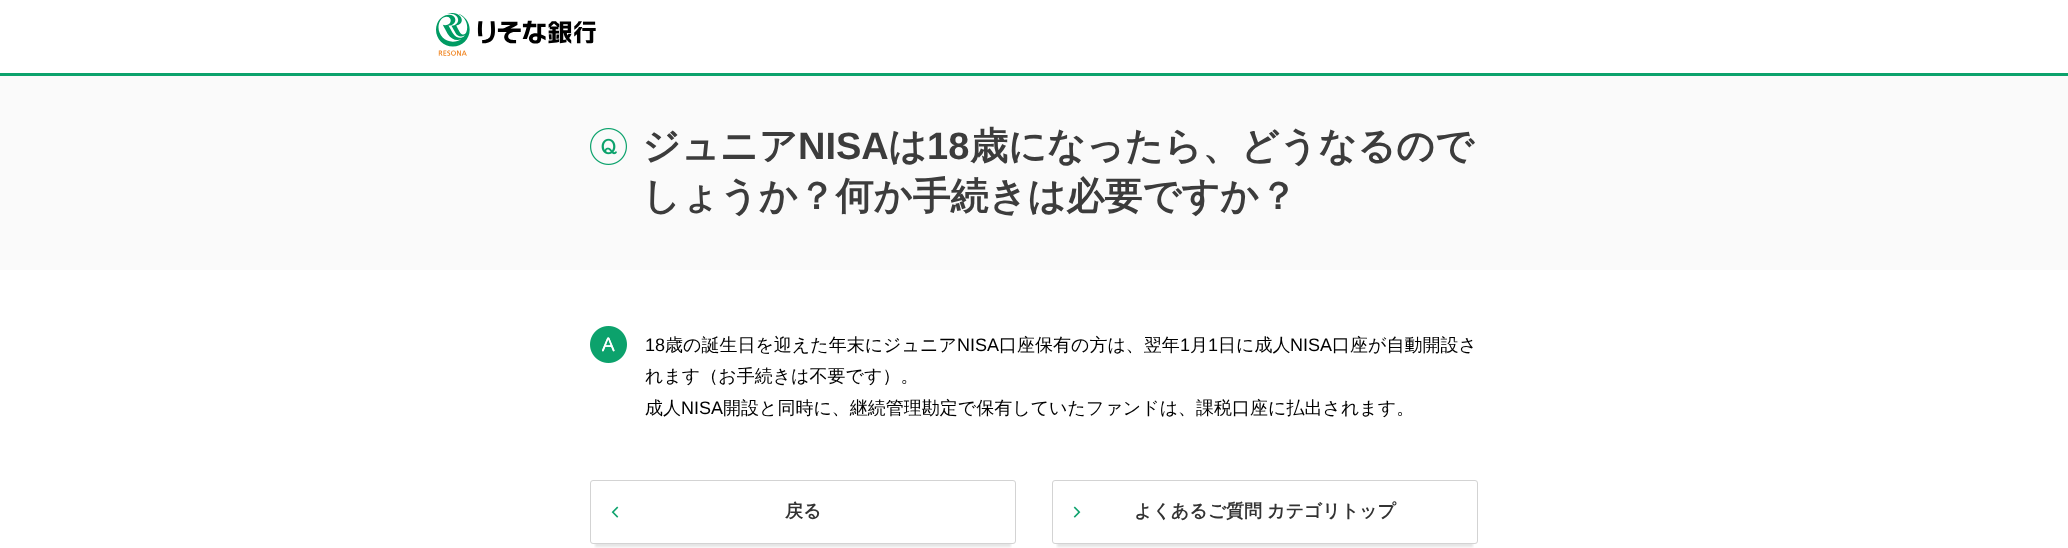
<!DOCTYPE html>
<meta charset="utf-8">
<style>body { margin: 0 } canvas { display: block }</style>
<canvas id="canvas" width="2068" height="548"></canvas>
<img id="img1" src="images/1.png" hidden>
<img id="img2" src="images/2.png" hidden>
<img id="img3" src="images/3.png" hidden>
<img id="img4" src="images/4.png" hidden>
<img id="img5" src="images/5.png" hidden>
<script>
window.onload = function () {
    const canvas = document.getElementById('canvas');
    const context = canvas.getContext('2d');
    context.miterLimit = 4;
    context.fontKerning = 'normal';

    context.fillStyle = 'rgb(255, 255, 255)';
    context.fillRect(0, 0, 2068, 548);
    context.fillStyle = 'rgb(12, 162, 108)';
    context.fillRect(0, 73, 2068, 3);
    context.drawImage(document.getElementById('img1'), 436, 13, 160, 43);
    context.fillStyle = 'rgb(250, 250, 250)';
    context.fillRect(0, 76, 2068, 194);
    context.drawImage(document.getElementById('img2'), 590, 128, 37, 37);
    context.drawImage(document.getElementById('img3'), 590, 326, 37, 37);
    context.save();
    context.beginPath();
    context.rect(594, 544, 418, 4);
    context.clip();
    context.fillStyle = 'rgba(0, 0, 0, 0.1)';
    context.filter = 'blur(1px)';
    context.beginPath();
    context.rect(595, 493, 416, 54);
    context.fill();
    context.filter = 'none';
    context.restore();
    context.beginPath();
    context.roundRect(590.5, 480.5, 425, 63, 2.5);
    context.strokeStyle = 'rgb(211, 211, 211)';
    context.stroke();
    context.drawImage(document.getElementById('img4'), 611, 506, 8, 12);
    context.save();
    context.beginPath();
    context.rect(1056, 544, 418, 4);
    context.clip();
    context.fillStyle = 'rgba(0, 0, 0, 0.1)';
    context.filter = 'blur(1px)';
    context.beginPath();
    context.rect(1057, 493, 416, 54);
    context.fill();
    context.filter = 'none';
    context.restore();
    context.beginPath();
    context.roundRect(1052.5, 480.5, 425, 63, 2.5);
    context.stroke();
    context.drawImage(document.getElementById('img5'), 1073, 506, 8, 12);
    context.font = 'bold 38px WenQuanYi Zen Hei';
    context.fillStyle = 'rgb(60, 60, 60)';
    context.fillText('ジュニア', 642, 159);
    context.font = 'bold 38px Liberation Sans';
    context.fillText('NISA', 798, 159);
    context.font = 'bold 38px WenQuanYi Zen Hei';
    context.fillText('は', 888, 159);
    context.font = 'bold 38px Liberation Sans';
    context.fillText('18', 927, 159);
    context.font = 'bold 38px WenQuanYi Zen Hei';
    context.fillText('歳になったら、どうなるので', 970, 159);
    context.fillText('しょうか？何か手続きは必要ですか？', 642, 209);
    context.font = '18px Liberation Sans';
    context.fillStyle = 'rgb(0, 0, 0)';
    context.fillText('18', 645, 351);
    context.font = '500 18px WenQuanYi Zen Hei';
    context.fillText('歳の誕生日を迎えた年末にジュニア', 665, 351);
    context.font = '18px Liberation Sans';
    context.fillText('NISA', 957, 351);
    context.font = '500 18px WenQuanYi Zen Hei';
    context.fillText('口座保有の方は、翌年', 999, 351);
    context.font = '18px Liberation Sans';
    context.fillText('1', 1180, 351);
    context.font = '500 18px WenQuanYi Zen Hei';
    context.fillText('月', 1190, 351);
    context.font = '18px Liberation Sans';
    context.fillText('1', 1208, 351);
    context.font = '500 18px WenQuanYi Zen Hei';
    context.fillText('日に成人', 1218, 351);
    context.font = '18px Liberation Sans';
    context.fillText('NISA', 1290, 351);
    context.font = '500 18px WenQuanYi Zen Hei';
    context.fillText('口座が自動開設さ', 1332, 351);
    context.fillText('れます（お手続きは不要です）。', 645, 382);
    context.fillText('成人', 645, 414);
    context.font = '18px Liberation Sans';
    context.fillText('NISA', 681, 414);
    context.font = '500 18px WenQuanYi Zen Hei';
    context.fillText('開設と同時に、継続管理勘定で保有していたファンドは、課税口座に払出されます。', 723, 414);
    context.font = 'bold 18px WenQuanYi Zen Hei';
    context.fillStyle = 'rgb(51, 51, 51)';
    context.fillText('戻る', 785, 517);
    context.fillText('よくあるご質問', 1134, 517);
    context.fillText('カテゴリトップ', 1267, 517);
};
</script>
